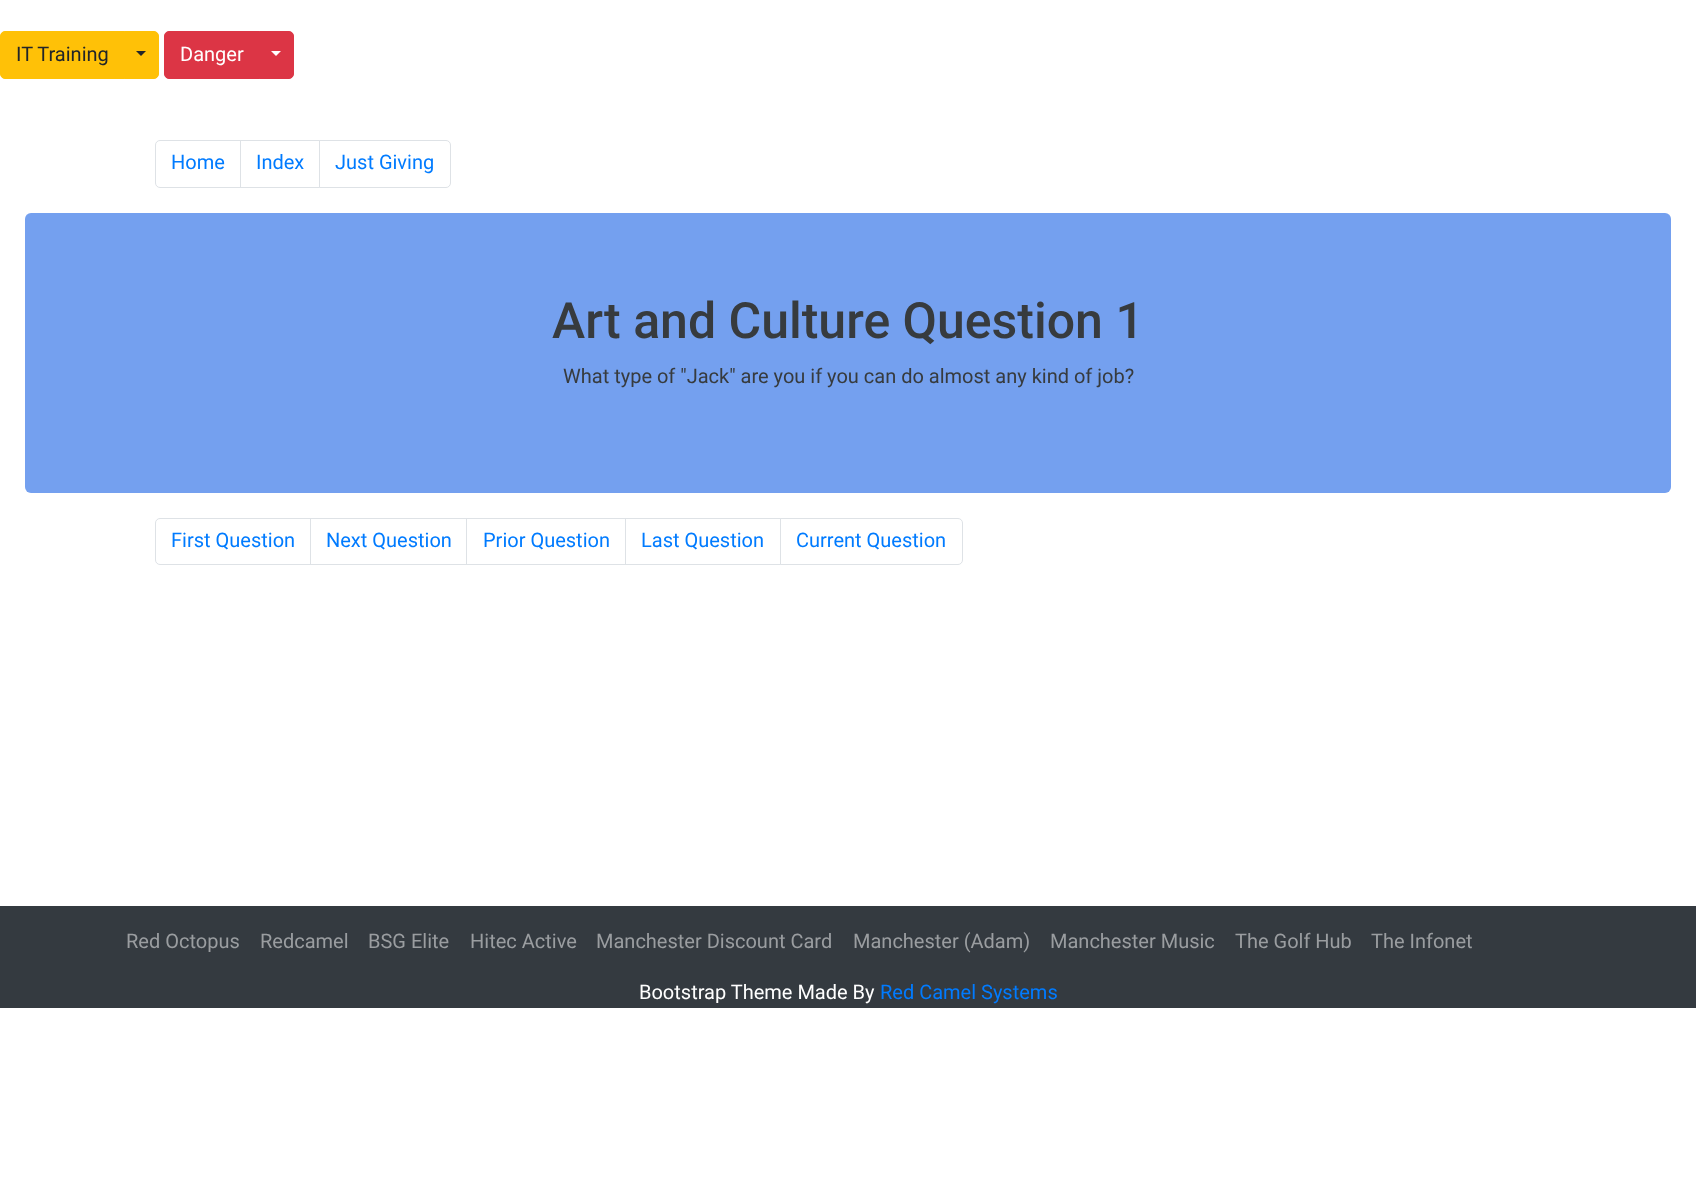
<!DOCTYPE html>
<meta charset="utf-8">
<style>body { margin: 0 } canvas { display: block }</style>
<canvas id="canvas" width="1696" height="1177"></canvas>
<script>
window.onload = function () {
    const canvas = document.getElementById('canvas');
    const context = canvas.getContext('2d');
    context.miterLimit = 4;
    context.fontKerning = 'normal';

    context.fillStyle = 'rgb(255, 255, 255)';
    context.fillRect(0, 0, 1696, 1177);
    context.fillStyle = 'rgb(255, 193, 7)';
    context.beginPath();
    context.roundRect(0.5, 31.5, 124, 47, [4.5, 0, 0, 4.5]);
    context.fill();
    context.strokeStyle = 'rgb(255, 193, 7)';
    context.stroke();
    context.beginPath();
    context.roundRect(124.5, 31.5, 34, 47, [0, 4.5, 4.5, 0]);
    context.fill();
    context.stroke();
    context.fillStyle = 'rgb(33, 37, 41)';
    context.beginPath();
    context.moveTo(136, 51);
    context.lineTo(146, 51);
    context.lineTo(141, 56);
    context.closePath();
    context.fill();
    context.fillStyle = 'rgb(220, 53, 69)';
    context.beginPath();
    context.roundRect(164.5, 31.5, 95, 47, [4.5, 0, 0, 4.5]);
    context.fill();
    context.strokeStyle = 'rgb(220, 53, 69)';
    context.stroke();
    context.beginPath();
    context.roundRect(259.5, 31.5, 34, 47, [0, 4.5, 4.5, 0]);
    context.fill();
    context.stroke();
    context.fillStyle = 'rgb(255, 255, 255)';
    context.beginPath();
    context.moveTo(271, 51);
    context.lineTo(281, 51);
    context.lineTo(276, 56);
    context.closePath();
    context.fill();
    context.beginPath();
    context.roundRect(155.5, 140.5, 85, 47, [4.5, 0, 0, 4.5]);
    context.strokeStyle = 'rgb(222, 226, 230)';
    context.stroke();
    context.strokeRect(240.5, 140.5, 79, 47);
    context.beginPath();
    context.roundRect(319.5, 140.5, 131, 47, [0, 4.5, 4.5, 0]);
    context.fill();
    context.stroke();
    context.fillStyle = 'rgb(116, 160, 239)';
    context.beginPath();
    context.roundRect(25, 213, 1646, 280, 6);
    context.fill();
    context.beginPath();
    context.roundRect(155.5, 518.5, 155, 46, [4.5, 0, 0, 4.5]);
    context.stroke();
    context.strokeRect(310.5, 518.5, 157, 46);
    context.fillStyle = 'rgb(255, 255, 255)';
    context.fillRect(467, 519, 1, 45);
    context.strokeRect(466.5, 518.5, 159, 46);
    context.strokeRect(625.5, 518.5, 155, 46);
    context.beginPath();
    context.roundRect(780.5, 518.5, 182, 46, [0, 4.5, 4.5, 0]);
    context.fill();
    context.stroke();
    context.fillStyle = 'rgb(52, 58, 64)';
    context.fillRect(0, 906, 1696, 102);
    context.font = '20px Roboto';
    context.fillStyle = 'rgb(33, 37, 41)';
    context.fillText('IT Training', 16, 61);
    context.fillStyle = 'rgb(255, 255, 255)';
    context.fillText('Danger', 180, 61);
    context.fillStyle = 'rgb(0, 123, 255)';
    context.fillText('Home', 171, 169);
    context.fillText('Index', 256, 169);
    context.fillText('Just Giving', 335, 169);
    context.font = '500 50px Roboto';
    context.fillStyle = 'rgb(55, 59, 62)';
    context.fillText('Art and Culture Question 1', 552, 338);
    context.font = '20px Roboto';
    context.fillText('What type of "Jack" are you if you can do almost any kind of job?', 563, 383);
    context.fillStyle = 'rgb(0, 123, 255)';
    context.fillText('First Question', 171, 547);
    context.fillText('Next Question', 326, 547);
    context.fillText('Prior Question', 483, 547);
    context.fillText('Last Question', 641, 547);
    context.fillText('Current Question', 796, 547);
    context.fillStyle = 'rgb(154, 157, 160)';
    context.fillText('Red Octopus', 126, 948);
    context.fillText('Redcamel', 260, 948);
    context.fillText('BSG Elite', 368, 948);
    context.fillText('Hitec Active', 470, 948);
    context.fillText('Manchester Discount Card', 596, 948);
    context.fillText('Manchester (Adam)', 853, 948);
    context.fillText('Manchester Music', 1050, 948);
    context.fillText('The Golf Hub', 1235, 948);
    context.fillText('The Infonet', 1371, 948);
    context.fillStyle = 'rgb(255, 255, 255)';
    context.fillText('Bootstrap Theme Made By', 639, 999);
    context.fillStyle = 'rgb(0, 123, 255)';
    context.fillText('Red Camel Systems', 880, 999);
};
</script>
